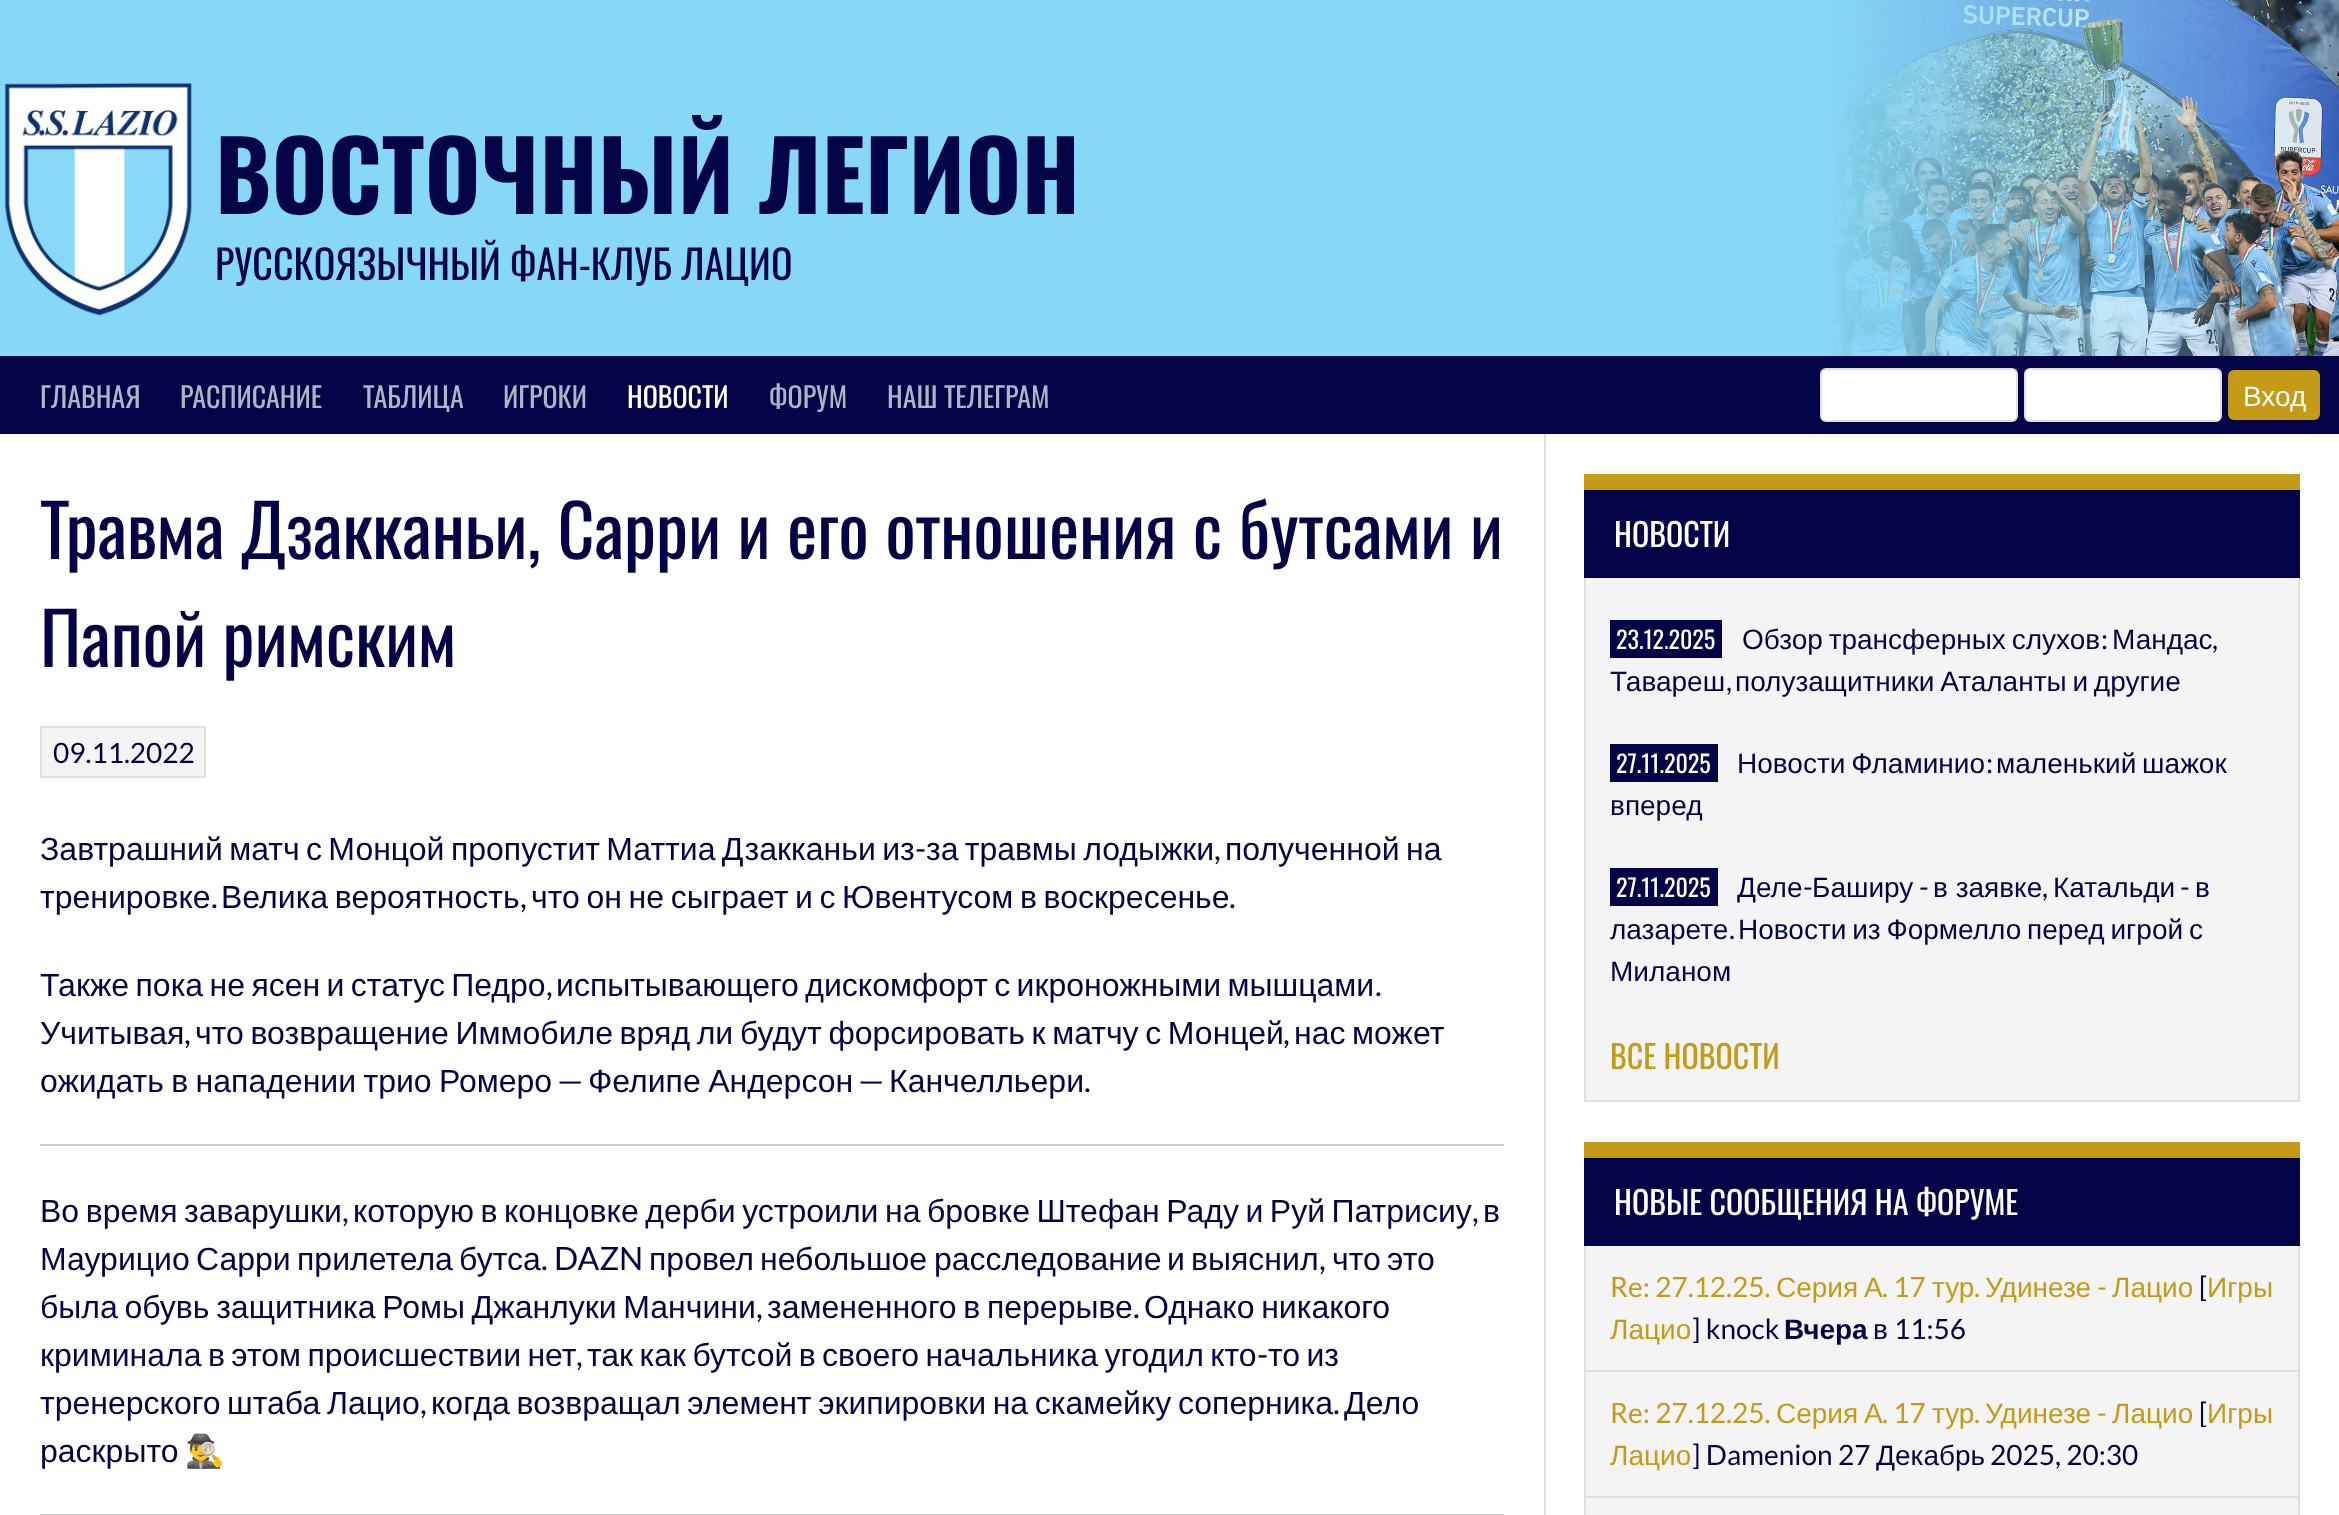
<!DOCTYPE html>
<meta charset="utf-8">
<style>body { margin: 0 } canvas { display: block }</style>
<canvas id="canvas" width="2339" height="1515"></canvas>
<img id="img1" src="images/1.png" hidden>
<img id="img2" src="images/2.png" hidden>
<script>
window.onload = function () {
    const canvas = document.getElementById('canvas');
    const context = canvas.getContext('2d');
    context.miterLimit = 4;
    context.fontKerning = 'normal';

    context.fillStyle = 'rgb(135, 216, 247)';
    context.fillRect(0, 0, 2339, 1515);
    context.drawImage(document.getElementById('img1'), 1833, 0, 506, 356);
    context.drawImage(document.getElementById('img2'), 4, 82, 188, 234);
    context.fillStyle = 'rgb(3, 3, 71)';
    context.fillRect(0, 356, 2339, 78);
    context.fillStyle = 'rgb(255, 255, 255)';
    context.beginPath();
    context.roundRect(1821, 369, 196, 52, 5);
    context.fill();
    context.strokeStyle = 'rgb(224, 224, 224)';
    context.lineWidth = 2;
    context.stroke();
    context.beginPath();
    context.roundRect(2025, 369, 196, 52, 5);
    context.fill();
    context.stroke();
    context.fillStyle = 'rgb(197, 154, 23)';
    context.beginPath();
    context.roundRect(2228, 370, 92, 50, 6);
    context.fill();
    context.fillStyle = 'rgb(255, 255, 255)';
    context.fillRect(0, 434, 2339, 1081);
    context.fillStyle = 'rgb(224, 224, 224)';
    context.fillRect(1544, 434, 2, 1081);
    context.fillStyle = 'rgb(244, 244, 244)';
    context.beginPath();
    context.rect(41, 727, 164, 50);
    context.fill();
    context.stroke();
    context.fillStyle = 'rgb(204, 204, 204)';
    context.fillRect(40, 1144, 1464, 2);
    context.fillRect(40, 1514, 1464, 1);
    context.fillStyle = 'rgb(244, 244, 244)';
    context.beginPath();
    context.rect(1585, 577, 714, 524);
    context.fill();
    context.stroke();
    context.fillStyle = 'rgb(3, 3, 71)';
    context.fillRect(1584, 490, 716, 88);
    context.fillStyle = 'rgb(197, 154, 23)';
    context.fillRect(1584, 474, 716, 16);
    context.fillStyle = 'rgb(3, 3, 71)';
    context.fillRect(1610, 620, 112, 38);
    context.fillRect(1610, 744, 108, 38);
    context.fillRect(1610, 868, 108, 38);
    context.fillStyle = 'rgb(244, 244, 244)';
    context.beginPath();
    context.rect(1585, 1245, 714, 126);
    context.fill();
    context.stroke();
    context.fillStyle = 'rgb(3, 3, 71)';
    context.fillRect(1584, 1158, 716, 88);
    context.fillStyle = 'rgb(197, 154, 23)';
    context.fillRect(1584, 1142, 716, 16);
    context.fillStyle = 'rgb(244, 244, 244)';
    context.beginPath();
    context.rect(1585, 1371, 714, 126);
    context.fill();
    context.stroke();
    context.beginPath();
    context.rect(1585, 1497, 714, 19);
    context.fill();
    context.stroke();
    context.font = 'bold 96px Oswald';
    context.fillStyle = 'rgb(3, 3, 71)';
    context.fillText('ВОСТОЧНЫЙ ЛЕГИОН', 215, 214);
    context.font = '40px Oswald';
    context.fillText('РУССКОЯЗЫЧНЫЙ ФАН-КЛУБ ЛАЦИО', 215, 280);
    context.font = '28px Oswald';
    context.fillStyle = 'rgb(179, 179, 200)';
    context.fillText('ГЛАВНАЯ', 40, 408);
    context.fillText('РАСПИСАНИЕ', 180, 408);
    context.fillText('ТАБЛИЦА', 363, 408);
    context.fillText('ИГРОКИ', 503, 408);
    context.fillStyle = 'rgb(255, 255, 255)';
    context.fillText('НОВОСТИ', 627, 408);
    context.fillStyle = 'rgb(179, 179, 200)';
    context.fillText('ФОРУМ', 769, 408);
    context.fillText('НАШ ТЕЛЕГРАМ', 887, 408);
    context.font = '28px Liberation Sans';
    context.fillStyle = 'rgb(255, 255, 255)';
    context.fillText('Вход', 2243, 406);
    context.font = '72px Oswald';
    context.fillStyle = 'rgb(3, 3, 71)';
    context.fillText('Травма Дзакканьи, Сарри и его отношения с бутсами и', 40, 559);
    context.fillText('Папой римским', 40, 667);
    context.font = '28px Lato';
    context.fillText('09.11.2022', 53, 763);
    context.wordSpacing = '-2.5px';
    context.font = '32px Liberation Sans';
    context.fillText('Завтрашний матч с Монцой пропустит Маттиа Дзакканьи из', 40, 860);
    context.wordSpacing = '0px';
    context.font = '32px Lato';
    context.fillText('-', 915, 860);
    context.wordSpacing = '-2.5px';
    context.font = '32px Liberation Sans';
    context.fillText('за травмы лодыжки', 926, 860);
    context.fillText('полученной на', 1225, 860);
    context.wordSpacing = '0px';
    context.font = '32px Lato';
    context.fillText(',', 1214, 860);
    context.font = '32px Liberation Sans';
    context.fillText('тренировке', 40, 908);
    context.font = '32px Lato';
    context.fillText('.', 211, 908);
    context.wordSpacing = '-2.25px';
    context.font = '32px Liberation Sans';
    context.fillText('Велика вероятность', 221, 908);
    context.wordSpacing = '0px';
    context.font = '32px Lato';
    context.fillText(',', 520, 908);
    context.wordSpacing = '-2.25px';
    context.font = '32px Liberation Sans';
    context.fillText('что он не сыграет и с Ювентусом в воскресенье', 531, 908);
    context.wordSpacing = '0px';
    context.font = '32px Lato';
    context.fillText('.', 1229, 908);
    context.wordSpacing = '-2.5px';
    context.font = '32px Liberation Sans';
    context.fillText('Также пока не ясен и статус Педро', 40, 996);
    context.wordSpacing = '0px';
    context.font = '32px Lato';
    context.fillText(',', 546, 996);
    context.wordSpacing = '-2.5px';
    context.font = '32px Liberation Sans';
    context.fillText('испытывающего дискомфорт с икроножными мышцами', 556, 996);
    context.wordSpacing = '0px';
    context.font = '32px Lato';
    context.fillText('.', 1375, 996);
    context.font = '32px Liberation Sans';
    context.fillText('Учитывая', 40, 1044);
    context.font = '32px Lato';
    context.fillText(',', 184, 1044);
    context.wordSpacing = '-2.25px';
    context.font = '32px Liberation Sans';
    context.fillText('что возвращение Иммобиле вряд ли будут форсировать к матчу с Монцей', 195, 1044);
    context.wordSpacing = '0px';
    context.font = '32px Lato';
    context.fillText(',', 1283, 1044);
    context.wordSpacing = '-2.25px';
    context.font = '32px Liberation Sans';
    context.fillText('нас может', 1294, 1044);
    context.wordSpacing = '-1.5px';
    context.fillText('ожидать в нападении трио Ромеро', 40, 1092);
    context.wordSpacing = '0px';
    context.font = '32px Lato';
    context.fillText('—', 557, 1092);
    context.wordSpacing = '-1.5px';
    context.font = '32px Liberation Sans';
    context.fillText('Фелипе Андерсон', 588, 1092);
    context.wordSpacing = '0px';
    context.font = '32px Lato';
    context.fillText('—', 858, 1092);
    context.font = '32px Liberation Sans';
    context.fillText('Канчелльери', 889, 1092);
    context.font = '32px Lato';
    context.fillText('.', 1084, 1092);
    context.wordSpacing = '-2.4px';
    context.font = '32px Liberation Sans';
    context.fillText('Во время заварушки', 40, 1222);
    context.wordSpacing = '0px';
    context.font = '32px Lato';
    context.fillText(',', 342, 1222);
    context.wordSpacing = '-2.4px';
    context.font = '32px Liberation Sans';
    context.fillText('которую в концовке дерби устроили на бровке Штефан Раду и Руй Патрисиу', 353, 1222);
    context.wordSpacing = '0px';
    context.font = '32px Lato';
    context.fillText(',', 1472, 1222);
    context.font = '32px Liberation Sans';
    context.fillText('в', 1483, 1222);
    context.fillText('Маурицио', 40, 1270);
    context.fillText('Сарри', 196, 1270);
    context.fillText('прилетела', 297, 1270);
    context.fillText('бутса', 459, 1270);
    context.font = '32px Lato';
    context.fillText('. DAZN', 541, 1270);
    context.font = '32px Liberation Sans';
    context.fillText('провел', 649, 1270);
    context.fillText('небольшое', 760, 1270);
    context.fillText('расследование', 934, 1270);
    context.fillText('и', 1167, 1270);
    context.fillText('выяснил', 1191, 1270);
    context.font = '32px Lato';
    context.fillText(',', 1319, 1270);
    context.font = '32px Liberation Sans';
    context.fillText('что', 1332, 1270);
    context.fillText('это', 1387, 1270);
    context.wordSpacing = '-2.25px';
    context.fillText('была обувь защитника Ромы Джанлуки Манчини', 40, 1318);
    context.wordSpacing = '0px';
    context.font = '32px Lato';
    context.fillText(',', 756, 1318);
    context.wordSpacing = '-2.25px';
    context.font = '32px Liberation Sans';
    context.fillText('замененного в перерыве', 767, 1318);
    context.wordSpacing = '0px';
    context.font = '32px Lato';
    context.fillText('.', 1133, 1318);
    context.wordSpacing = '-2.25px';
    context.font = '32px Liberation Sans';
    context.fillText('Однако никакого', 1144, 1318);
    context.wordSpacing = '-2.5px';
    context.fillText('криминала в этом происшествии нет', 40, 1366);
    context.fillText('так как бутсой в своего начальника угодил кто', 587, 1366);
    context.wordSpacing = '0px';
    context.font = '32px Lato';
    context.fillText('-', 1257, 1366);
    context.wordSpacing = '-2.5px';
    context.font = '32px Liberation Sans';
    context.fillText('то из', 1268, 1366);
    context.wordSpacing = '0px';
    context.font = '32px Lato';
    context.fillText(',', 576, 1366);
    context.wordSpacing = '-2.25px';
    context.font = '32px Liberation Sans';
    context.fillText('тренерского штаба Лацио', 40, 1414);
    context.wordSpacing = '0px';
    context.font = '32px Lato';
    context.fillText(',', 420, 1414);
    context.wordSpacing = '-2.25px';
    context.font = '32px Liberation Sans';
    context.fillText('когда возвращал элемент экипировки на скамейку соперника', 431, 1414);
    context.wordSpacing = '0px';
    context.font = '32px Lato';
    context.fillText('.', 1333, 1414);
    context.font = '32px Liberation Sans';
    context.fillText('Дело', 1344, 1414);
    context.fillText('раскрыто', 40, 1462);
    context.font = '32px Noto Color Emoji';
    context.fillText('🕵️‍♂️', 185, 1462);
    context.font = '32px Oswald';
    context.fillStyle = 'rgb(255, 255, 255)';
    context.fillText('НОВОСТИ', 1614, 547);
    context.font = '24px Oswald';
    context.fillText('23.12.2025', 1616, 649);
    context.wordSpacing = '-2px';
    context.font = '28px Liberation Sans';
    context.fillStyle = 'rgb(3, 3, 71)';
    context.fillText('Обзор трансферных слухов', 1742, 649);
    context.wordSpacing = '0px';
    context.font = '28px Lato';
    context.fillText(':', 2101, 649);
    context.font = '28px Liberation Sans';
    context.fillText('Мандас', 2112, 649);
    context.font = '28px Lato';
    context.fillText(',', 2212, 649);
    context.font = '28px Liberation Sans';
    context.fillText('Тавареш', 1610, 691);
    context.font = '28px Lato';
    context.fillText(',', 1726, 691);
    context.wordSpacing = '-2px';
    context.font = '28px Liberation Sans';
    context.fillText('полузащитники Аталанты и другие', 1735, 691);
    context.wordSpacing = '0px';
    context.font = '24px Oswald';
    context.fillStyle = 'rgb(255, 255, 255)';
    context.fillText('27.11.2025', 1616, 773);
    context.wordSpacing = '-2px';
    context.font = '28px Liberation Sans';
    context.fillStyle = 'rgb(3, 3, 71)';
    context.fillText('Новости Фламинио', 1737, 773);
    context.wordSpacing = '0px';
    context.font = '28px Lato';
    context.fillText(':', 1986, 773);
    context.wordSpacing = '-2px';
    context.font = '28px Liberation Sans';
    context.fillText('маленький шажок', 1996, 773);
    context.wordSpacing = '0px';
    context.fillText('вперед', 1610, 815);
    context.font = '24px Oswald';
    context.fillStyle = 'rgb(255, 255, 255)';
    context.fillText('27.11.2025', 1616, 897);
    context.font = '28px Liberation Sans';
    context.fillStyle = 'rgb(3, 3, 71)';
    context.fillText('Деле', 1737, 897);
    context.font = '28px Lato';
    context.fillText('-', 1803, 897);
    context.font = '28px Liberation Sans';
    context.fillText('Баширу', 1812, 897);
    context.font = '28px Lato';
    context.fillText('-', 1919, 897);
    context.font = '28px Liberation Sans';
    context.fillText('в заявке', 1933, 897);
    context.fillText('Катальди', 2053, 897);
    context.font = '28px Lato';
    context.fillText('-', 2180, 897);
    context.font = '28px Liberation Sans';
    context.fillText('в', 2195, 897);
    context.font = '28px Lato';
    context.fillText(',', 2042, 897);
    context.font = '28px Liberation Sans';
    context.fillText('лазарете', 1610, 939);
    context.font = '28px Lato';
    context.fillText('.', 1729, 939);
    context.wordSpacing = '-2px';
    context.font = '28px Liberation Sans';
    context.fillText('Новости из Формелло перед игрой с', 1738, 939);
    context.wordSpacing = '0px';
    context.fillText('Миланом', 1610, 981);
    context.font = '32px Oswald';
    context.fillStyle = 'rgb(197, 154, 23)';
    context.fillText('ВСЕ НОВОСТИ', 1610, 1069);
    context.fillStyle = 'rgb(255, 255, 255)';
    context.fillText('НОВЫЕ СООБЩЕНИЯ НА ФОРУМЕ', 1614, 1215);
    context.font = '28px Lato';
    context.fillStyle = 'rgb(197, 154, 23)';
    context.fillText('Re: 27.12.25.', 1610, 1297);
    context.font = '28px Liberation Sans';
    context.fillText('Серия', 1776, 1297);
    context.fillText('А', 1864, 1297);
    context.font = '28px Lato';
    context.fillText('. 17', 1882, 1297);
    context.font = '28px Liberation Sans';
    context.fillText('тур', 1932, 1297);
    context.fillText('Удинезе', 1985, 1297);
    context.font = '28px Lato';
    context.fillText('-', 2097, 1297);
    context.font = '28px Liberation Sans';
    context.fillText('Лацио', 2112, 1297);
    context.font = '28px Lato';
    context.fillStyle = 'rgb(3, 3, 71)';
    context.fillText('[', 2199, 1297);
    context.font = '28px Liberation Sans';
    context.fillStyle = 'rgb(197, 154, 23)';
    context.fillText('Игры', 2207, 1297);
    context.font = '28px Lato';
    context.fillText('.', 1974, 1297);
    context.font = '28px Liberation Sans';
    context.fillText('Лацио', 1610, 1339);
    context.font = '28px Lato';
    context.fillStyle = 'rgb(3, 3, 71)';
    context.fillText('] knock', 1692, 1339);
    context.font = 'bold 28px Liberation Sans';
    context.fillText('Вчера', 1784, 1339);
    context.font = '28px Liberation Sans';
    context.fillText('в', 1873, 1339);
    context.font = '28px Lato';
    context.fillText('11:56', 1894, 1339);
    context.fillStyle = 'rgb(197, 154, 23)';
    context.fillText('Re: 27.12.25.', 1610, 1423);
    context.font = '28px Liberation Sans';
    context.fillText('Серия', 1776, 1423);
    context.fillText('А', 1864, 1423);
    context.font = '28px Lato';
    context.fillText('. 17', 1882, 1423);
    context.font = '28px Liberation Sans';
    context.fillText('тур', 1932, 1423);
    context.fillText('Удинезе', 1985, 1423);
    context.font = '28px Lato';
    context.fillText('-', 2097, 1423);
    context.font = '28px Liberation Sans';
    context.fillText('Лацио', 2112, 1423);
    context.font = '28px Lato';
    context.fillStyle = 'rgb(3, 3, 71)';
    context.fillText('[', 2199, 1423);
    context.font = '28px Liberation Sans';
    context.fillStyle = 'rgb(197, 154, 23)';
    context.fillText('Игры', 2207, 1423);
    context.font = '28px Lato';
    context.fillText('.', 1974, 1423);
    context.font = '28px Liberation Sans';
    context.fillText('Лацио', 1610, 1465);
    context.font = '28px Lato';
    context.fillStyle = 'rgb(3, 3, 71)';
    context.fillText('] Damenion 27', 1692, 1465);
    context.font = '28px Liberation Sans';
    context.fillText('Декабрь', 1876, 1465);
    context.font = '28px Lato';
    context.fillText('2025, 20:30', 1990, 1465);
};
</script>
